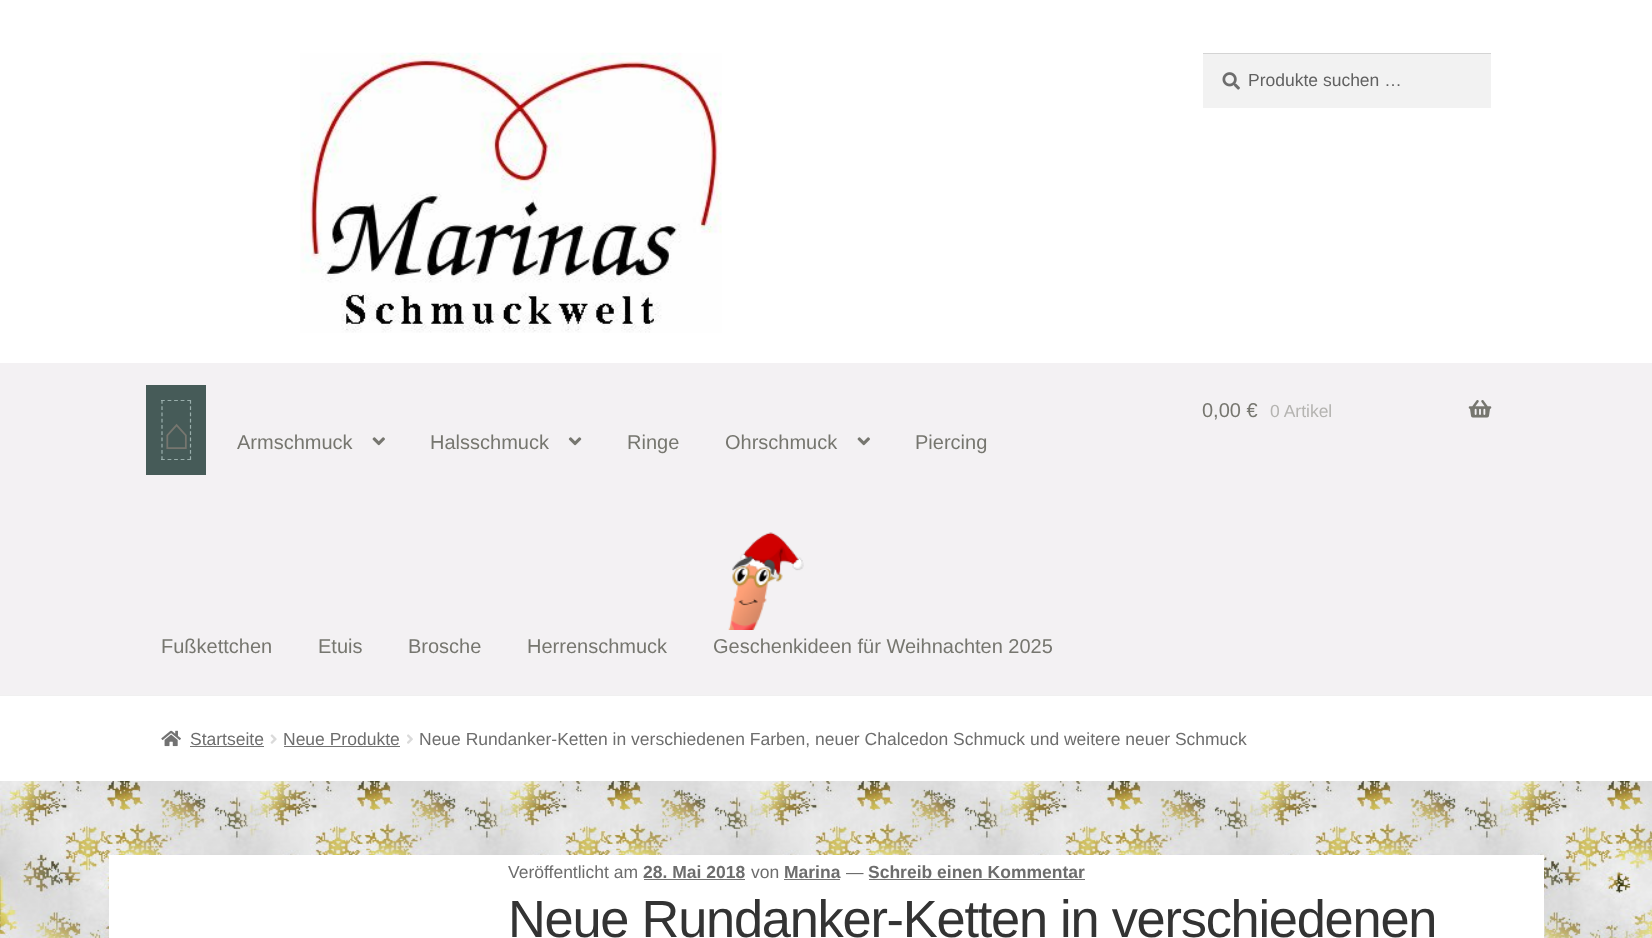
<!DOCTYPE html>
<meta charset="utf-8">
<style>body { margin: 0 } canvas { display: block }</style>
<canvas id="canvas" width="1652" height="938"></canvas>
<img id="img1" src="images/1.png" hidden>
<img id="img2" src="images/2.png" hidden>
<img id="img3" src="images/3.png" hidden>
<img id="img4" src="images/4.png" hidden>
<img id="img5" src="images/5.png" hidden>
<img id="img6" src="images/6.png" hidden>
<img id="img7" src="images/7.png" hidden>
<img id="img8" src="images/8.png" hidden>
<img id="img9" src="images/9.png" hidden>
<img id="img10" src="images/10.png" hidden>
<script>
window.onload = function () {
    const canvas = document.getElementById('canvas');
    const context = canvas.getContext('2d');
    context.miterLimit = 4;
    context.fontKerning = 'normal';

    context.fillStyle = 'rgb(255, 255, 255)';
    context.fillRect(0, 0, 1652, 938);
    context.drawImage(document.getElementById('img1'), 0, 781, 1652, 157);
    context.fillStyle = 'rgb(240, 240, 240)';
    context.fillRect(0, 695, 1652, 1);
    context.drawImage(document.getElementById('img2'), 300, 52, 422, 281);
    context.fillStyle = 'rgb(242, 242, 242)';
    context.fillRect(1203, 54, 288, 54);
    context.drawImage(document.getElementById('img3'), 1222, 72, 18, 18);
    context.fillStyle = 'rgb(212, 212, 212)';
    context.fillRect(1203, 53, 288, 1);
    context.fillStyle = 'rgb(243, 241, 243)';
    context.fillRect(0, 363, 1652, 332);
    context.drawImage(document.getElementById('img4'), 1468, 400, 24, 18);
    context.strokeStyle = 'rgb(70, 91, 88)';
    context.lineWidth = 15;
    context.strokeRect(153.5, 392.5, 45, 75);
    context.fillStyle = 'rgb(70, 91, 88)';
    context.fillRect(161, 400, 30, 60);
    context.beginPath();
    context.moveTo(161, 400.5);
    context.lineTo(191, 400.5);
    context.strokeStyle = 'rgb(155, 176, 173)';
    context.lineWidth = 1.2;
    context.setLineDash([3.75, 2.81]);
    context.stroke();
    context.beginPath();
    context.moveTo(190.5, 400);
    context.lineTo(190.5, 460);
    context.setLineDash([3.75, 2.5]);
    context.stroke();
    context.beginPath();
    context.moveTo(161, 459.5);
    context.lineTo(191, 459.5);
    context.setLineDash([3.75, 2.81]);
    context.stroke();
    context.beginPath();
    context.moveTo(162, 400);
    context.lineTo(162, 460);
    context.setLineDash([3.75, 2.5]);
    context.stroke();
    context.drawImage(document.getElementById('img5'), 372, 437, 13, 9);
    context.drawImage(document.getElementById('img6'), 568, 437, 14, 9);
    context.drawImage(document.getElementById('img5'), 857, 437, 13, 9);
    context.drawImage(document.getElementById('img7'), 728, 532, 76, 98);
    context.drawImage(document.getElementById('img8'), 161, 730, 20, 17);
    context.fillStyle = 'rgb(114, 114, 114)';
    context.fillRect(190, 746, 74, 1);
    context.drawImage(document.getElementById('img9'), 270, 734, 7, 10);
    context.fillRect(284, 746, 116, 1);
    context.drawImage(document.getElementById('img10'), 407, 734, 6, 10);
    context.fillStyle = 'rgb(255, 255, 255)';
    context.fillRect(109, 855, 1435, 83);
    context.fillStyle = 'rgb(114, 114, 114)';
    context.fillRect(644, 879, 101, 1);
    context.fillRect(784, 879, 56, 1);
    context.fillRect(869, 879, 216, 1);
    context.font = '17.5px Liberation Sans';
    context.fillStyle = 'rgb(97, 97, 97)';
    context.fillText('Produkte suchen …', 1248, 86);
    context.font = '20px Liberation Sans';
    context.fillStyle = 'rgb(118, 118, 111)';
    context.fillText('0,00 €', 1202, 417);
    context.font = '17.5px Liberation Sans';
    context.fillStyle = 'rgb(181, 180, 177)';
    context.fillText('0 Artikel', 1270, 417);
    context.font = '45px Liberation Sans';
    context.fillStyle = 'rgb(118, 118, 111)';
    context.fillText('⌂', 163, 449);
    context.font = '20px Liberation Sans';
    context.fillText('Armschmuck', 237, 449);
    context.fillText('Halsschmuck', 430, 449);
    context.fillText('Ringe', 627, 449);
    context.fillText('Ohrschmuck', 725, 449);
    context.fillText('Piercing', 915, 449);
    context.fillText('Fußkettchen', 161, 653);
    context.fillText('Etuis', 318, 653);
    context.fillText('Brosche', 408, 653);
    context.fillText('Herrenschmuck', 527, 653);
    context.fillText('Geschenkideen für Weihnachten 2025', 713, 653);
    context.font = '17.5px Liberation Sans';
    context.fillStyle = 'rgb(109, 109, 109)';
    context.fillText('Startseite', 190, 745);
    context.fillText('Neue Produkte', 283, 745);
    context.fillText('Neue Rundanker-Ketten in verschiedenen Farben, neuer Chalcedon Schmuck und weitere neuer Schmuck', 419, 745);
    context.fillText('Veröffentlicht am', 508, 878);
    context.font = 'bold 17.5px Liberation Sans';
    context.fillText('28. Mai 2018', 643, 878);
    context.font = '17.5px Liberation Sans';
    context.fillText('von', 751, 878);
    context.font = 'bold 17.5px Liberation Sans';
    context.fillText('Marina', 784, 878);
    context.font = '17.5px Liberation Sans';
    context.fillText('—', 846, 878);
    context.font = 'bold 17.5px Liberation Sans';
    context.fillText('Schreib einen Kommentar', 868, 878);
    context.letterSpacing = '-1.25px';
    context.font = '52.4px Liberation Sans';
    context.fillStyle = 'rgb(51, 51, 51)';
    context.fillText('Neue Rundanker-Ketten in verschiedenen', 508, 937);
};
</script>
